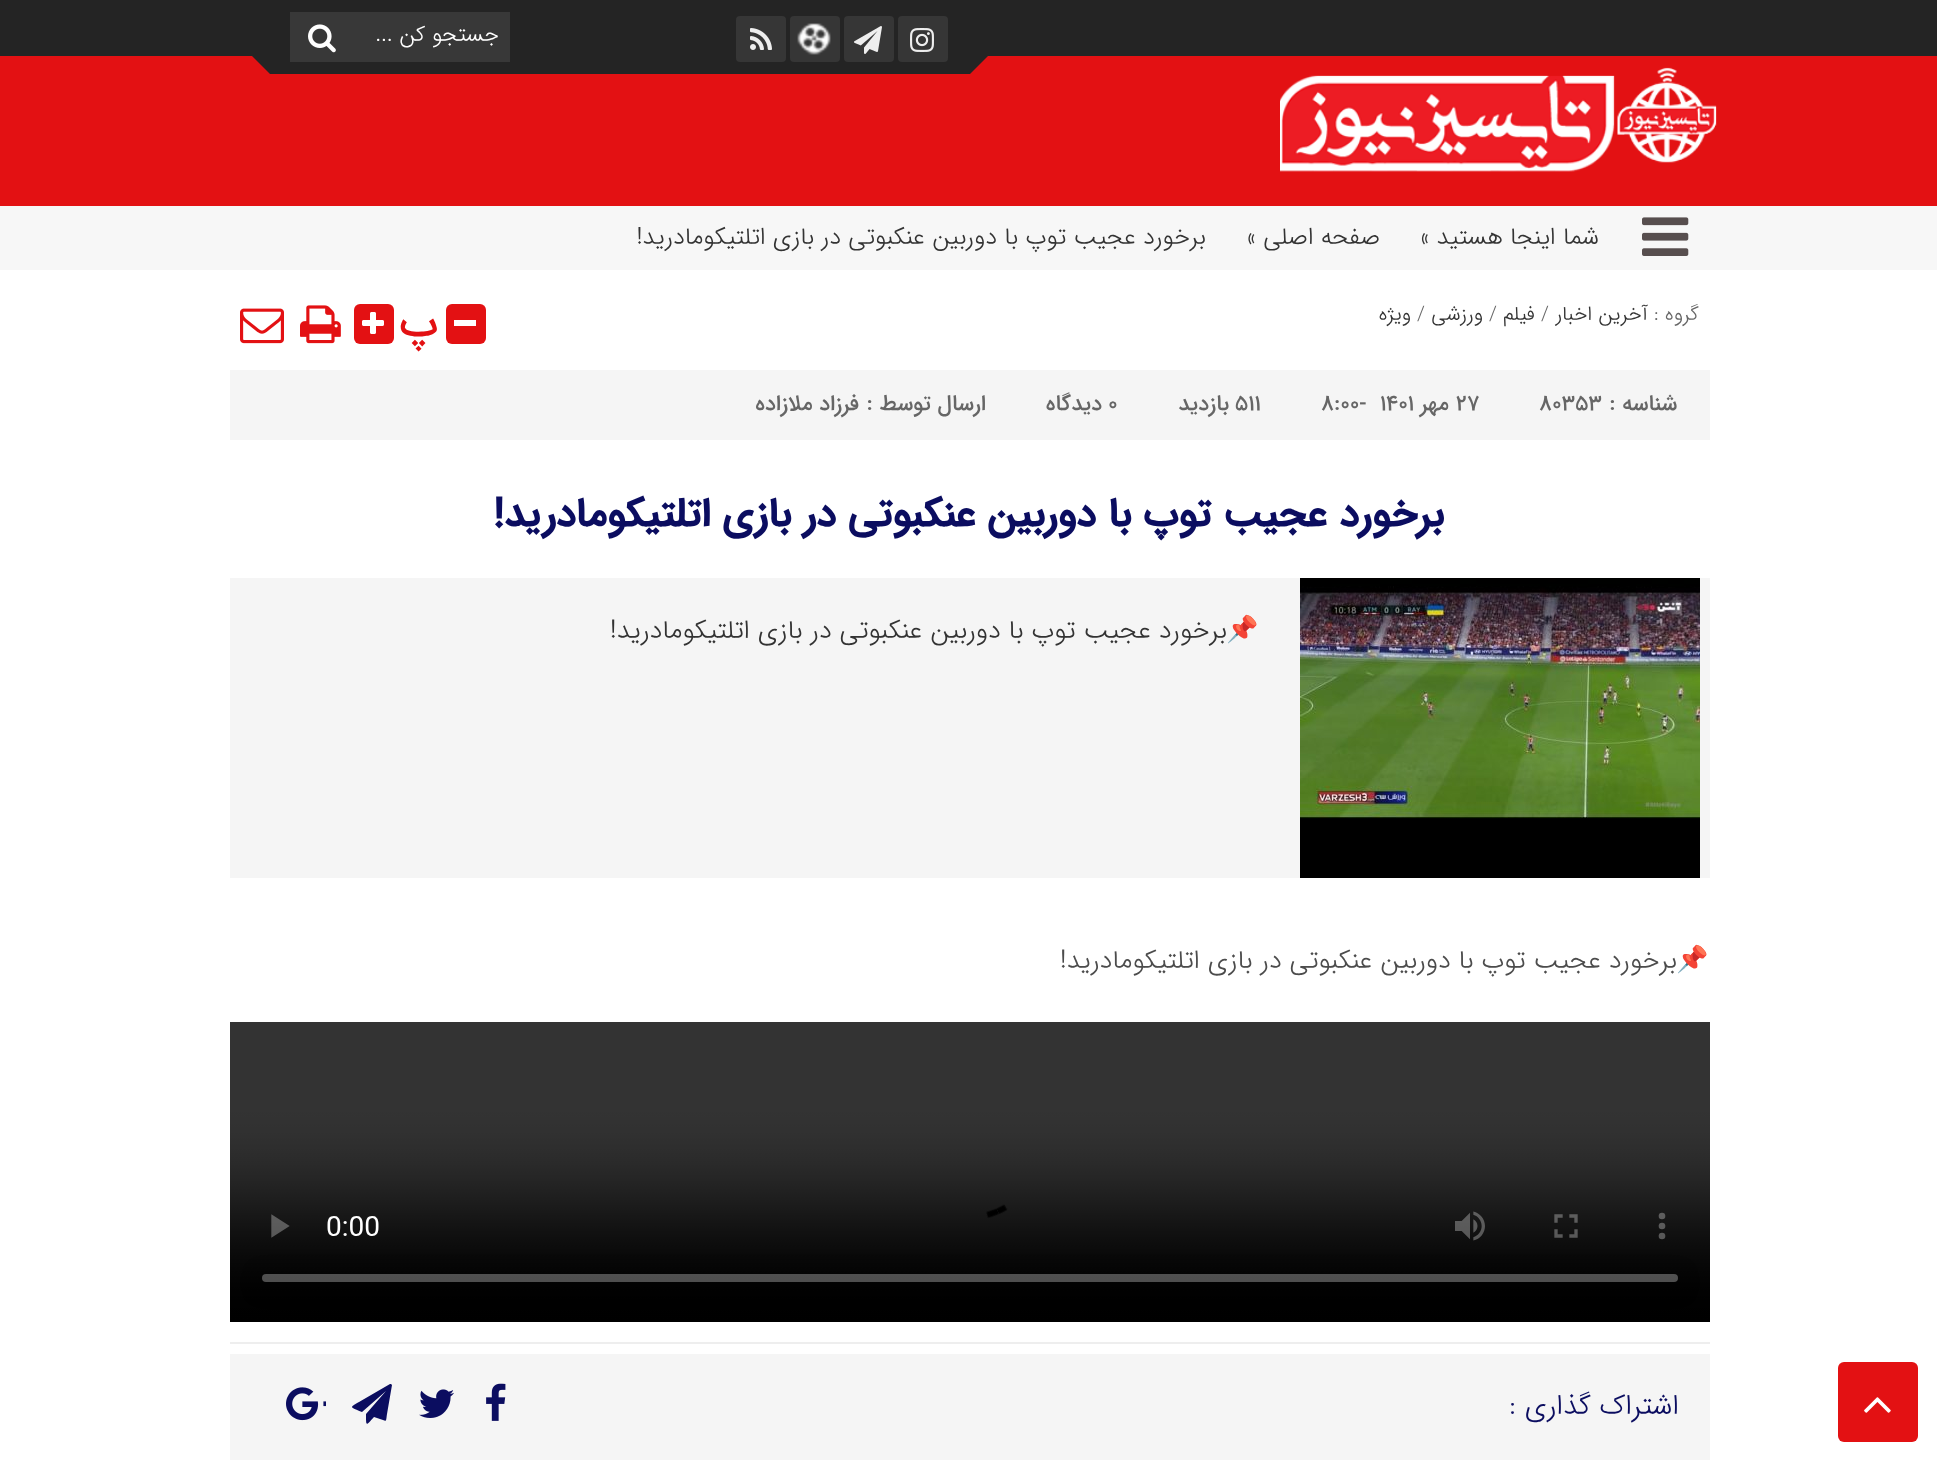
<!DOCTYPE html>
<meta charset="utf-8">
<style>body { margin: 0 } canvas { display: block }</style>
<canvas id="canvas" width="1937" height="1462"></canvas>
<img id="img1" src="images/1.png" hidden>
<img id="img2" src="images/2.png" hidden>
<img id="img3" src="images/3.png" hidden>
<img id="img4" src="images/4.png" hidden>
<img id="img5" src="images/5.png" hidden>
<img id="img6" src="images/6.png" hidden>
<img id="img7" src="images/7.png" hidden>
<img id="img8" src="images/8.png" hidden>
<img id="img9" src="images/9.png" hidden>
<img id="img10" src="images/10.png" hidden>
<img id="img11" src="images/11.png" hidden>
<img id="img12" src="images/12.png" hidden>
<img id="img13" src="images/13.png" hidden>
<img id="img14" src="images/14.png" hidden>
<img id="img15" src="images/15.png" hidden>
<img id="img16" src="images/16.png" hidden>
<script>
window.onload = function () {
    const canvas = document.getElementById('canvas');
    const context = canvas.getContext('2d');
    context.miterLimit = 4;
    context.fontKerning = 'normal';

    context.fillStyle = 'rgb(255, 255, 255)';
    context.fillRect(0, 0, 1937, 1462);
    context.fillStyle = 'rgb(36, 36, 36)';
    context.fillRect(0, 0, 1937, 56);
    context.fillStyle = 'rgb(227, 17, 19)';
    context.fillRect(0, 56, 1937, 150);
    context.fillStyle = 'rgb(36, 36, 36)';
    context.fillRect(270, 56, 700, 18);
    context.fillStyle = 'rgb(54, 54, 54)';
    context.beginPath();
    context.roundRect(898, 16, 50, 46, 4);
    context.fill();
    context.drawImage(document.getElementById('img1'), 910, 28, 24, 24);
    context.beginPath();
    context.roundRect(844, 16, 50, 46, 4);
    context.fill();
    context.drawImage(document.getElementById('img2'), 854, 26, 28, 28);
    context.beginPath();
    context.roundRect(790, 16, 50, 46, 4);
    context.fill();
    context.drawImage(document.getElementById('img3'), 797, 23, 34, 32);
    context.beginPath();
    context.roundRect(736, 16, 50, 46, 4);
    context.fill();
    context.drawImage(document.getElementById('img4'), 750, 28, 22, 22);
    context.fillStyle = 'rgb(56, 56, 56)';
    context.fillRect(290, 12, 220, 50);
    context.drawImage(document.getElementById('img5'), 308, 24, 28, 29);
    context.fillStyle = 'rgb(36, 36, 36)';
    context.beginPath();
    context.moveTo(970, 50);
    context.lineTo(994, 50);
    context.lineTo(970, 74);
    context.closePath();
    context.fill();
    context.beginPath();
    context.moveTo(246, 50);
    context.lineTo(270, 50);
    context.lineTo(270, 74);
    context.closePath();
    context.fill();
    context.drawImage(document.getElementById('img6'), 1280, 67, 437, 105);
    context.fillStyle = 'rgb(247, 247, 247)';
    context.fillRect(0, 206, 1937, 64);
    context.drawImage(document.getElementById('img7'), 1642, 217, 47, 39);
    context.fillStyle = 'rgb(227, 17, 19)';
    context.beginPath();
    context.roundRect(1838, 1362, 80, 80, 6);
    context.fill();
    context.drawImage(document.getElementById('img8'), 1864, 1397, 27, 16);
    context.beginPath();
    context.roundRect(446, 304, 40, 40, 6);
    context.fill();
    context.fillStyle = 'rgb(255, 255, 255)';
    context.fillRect(454, 320, 22, 6);
    context.fillStyle = 'rgb(227, 17, 19)';
    context.beginPath();
    context.roundRect(354, 304, 40, 40, 6);
    context.fill();
    context.drawImage(document.getElementById('img9'), 362, 312, 22, 22);
    context.drawImage(document.getElementById('img10'), 300, 305, 41, 39);
    context.drawImage(document.getElementById('img11'), 240, 308, 44, 36);
    context.fillStyle = 'rgb(245, 245, 245)';
    context.fillRect(230, 370, 1480, 70);
    context.fillRect(230, 578, 1480, 300);
    context.drawImage(document.getElementById('img12'), 1300, 578, 400, 300);
    context.drawImage(document.getElementById('img13'), 230, 1022, 1480, 300);
    context.fillStyle = 'rgb(238, 238, 238)';
    context.fillRect(230, 1342, 1480, 2);
    context.fillStyle = 'rgb(245, 245, 245)';
    context.fillRect(230, 1354, 1480, 106);
    context.drawImage(document.getElementById('img14'), 486, 1383, 20, 38);
    context.drawImage(document.getElementById('img15'), 419, 1389, 35, 29);
    context.fillStyle = 'rgb(11, 13, 96)';
    context.beginPath();
    context.moveTo(391, 1384);
    context.lineTo(392, 1385);
    context.lineTo(387, 1414);
    context.bezierCurveTo(386, 1420, 387, 1422, 383, 1420);
    context.lineTo(374, 1417);
    context.bezierCurveTo(366, 1426, 366, 1427, 366, 1414);
    context.lineTo(386, 1391);
    context.lineTo(362, 1412);
    context.bezierCurveTo(351, 1407, 348, 1408, 359, 1402);
    context.lineTo(390, 1384);
    context.closePath();
    context.fill();
    context.drawImage(document.getElementById('img16'), 286, 1387, 40, 34);
    context.direction = 'rtl';
    context.font = '300 22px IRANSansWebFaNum';
    context.fillStyle = 'rgb(255, 255, 255)';
    context.fillText('جستجو کن ...', 499, 41);
    context.font = '300 24px IRANSansWebFaNum';
    context.fillStyle = 'rgb(51, 51, 51)';
    context.fillText('شما اینجا هستید »', 1599, 244);
    context.fillText('صفحه اصلی »', 1380, 244);
    context.fillText('برخورد عجیب توپ با دوربین عنکبوتی در بازی اتلتیکومادرید!', 1206, 244);
    context.font = '300 20px IRANSansWebFaNum';
    context.fillStyle = 'rgb(102, 102, 102)';
    context.fillText('گروه :', 1699, 320);
    context.fillStyle = 'rgb(51, 51, 51)';
    context.fillText('آخرین اخبار', 1648, 320);
    context.direction = 'ltr';
    context.fillStyle = 'rgb(102, 102, 102)';
    context.fillText('/', 1541, 320);
    context.direction = 'rtl';
    context.fillStyle = 'rgb(51, 51, 51)';
    context.fillText('فیلم', 1535, 320);
    context.direction = 'ltr';
    context.fillStyle = 'rgb(102, 102, 102)';
    context.fillText('/', 1489, 320);
    context.direction = 'rtl';
    context.fillStyle = 'rgb(51, 51, 51)';
    context.fillText('ورزشی', 1483, 320);
    context.direction = 'ltr';
    context.fillStyle = 'rgb(102, 102, 102)';
    context.fillText('/', 1417, 320);
    context.direction = 'rtl';
    context.fillStyle = 'rgb(51, 51, 51)';
    context.fillText('ویژه', 1411, 320);
    context.font = '500 44px IRANSansWebFaNum';
    context.fillStyle = 'rgb(227, 17, 19)';
    context.fillText('پ', 438, 336);
    context.font = '500 22px IRANSansWebFaNum';
    context.fillStyle = 'rgb(102, 102, 102)';
    context.fillText('شناسه :', 1677, 410);
    context.direction = 'ltr';
    context.fillText('80353', 1539, 410);
    context.fillText('۲۷', 1456, 410);
    context.direction = 'rtl';
    context.fillText('مهر', 1449, 410);
    context.direction = 'ltr';
    context.fillText('۱۴۰۱', 1380, 410);
    context.fillText('۸:۰۰-', 1321, 410);
    context.fillText('511', 1235, 410);
    context.direction = 'rtl';
    context.fillText('بازدید', 1229, 410);
    context.direction = 'ltr';
    context.fillText('0', 1108, 410);
    context.direction = 'rtl';
    context.fillText('دیدگاه', 1102, 410);
    context.fillText('ارسال توسط :', 986, 410);
    context.fillText('فرزاد ملازاده', 859, 410);
    context.font = 'bold 40px IRANSansWebFaNum';
    context.fillStyle = 'rgb(11, 13, 96)';
    context.fillText('برخورد عجیب توپ با دوربین عنکبوتی در بازی اتلتیکومادرید!', 1444, 526);
    context.font = '26px Noto Color Emoji';
    context.fillStyle = 'rgb(51, 51, 51)';
    context.fillText('📌', 1259, 638);
    context.font = '300 26px IRANSansWebFaNum';
    context.fillText('برخورد عجیب توپ با دوربین عنکبوتی در بازی اتلتیکومادرید!', 1227, 638);
    context.font = '26px Noto Color Emoji';
    context.fillStyle = 'rgb(76, 76, 76)';
    context.fillText('📌', 1709, 968);
    context.font = '300 26px IRANSansWebFaNum';
    context.fillText('برخورد عجیب توپ با دوربین عنکبوتی در بازی اتلتیکومادرید!', 1677, 968);
    context.font = '300 28px IRANSansWebFaNum';
    context.fillStyle = 'rgb(11, 13, 96)';
    context.fillText('اشتراک گذاری :', 1679, 1414);
};
</script>
